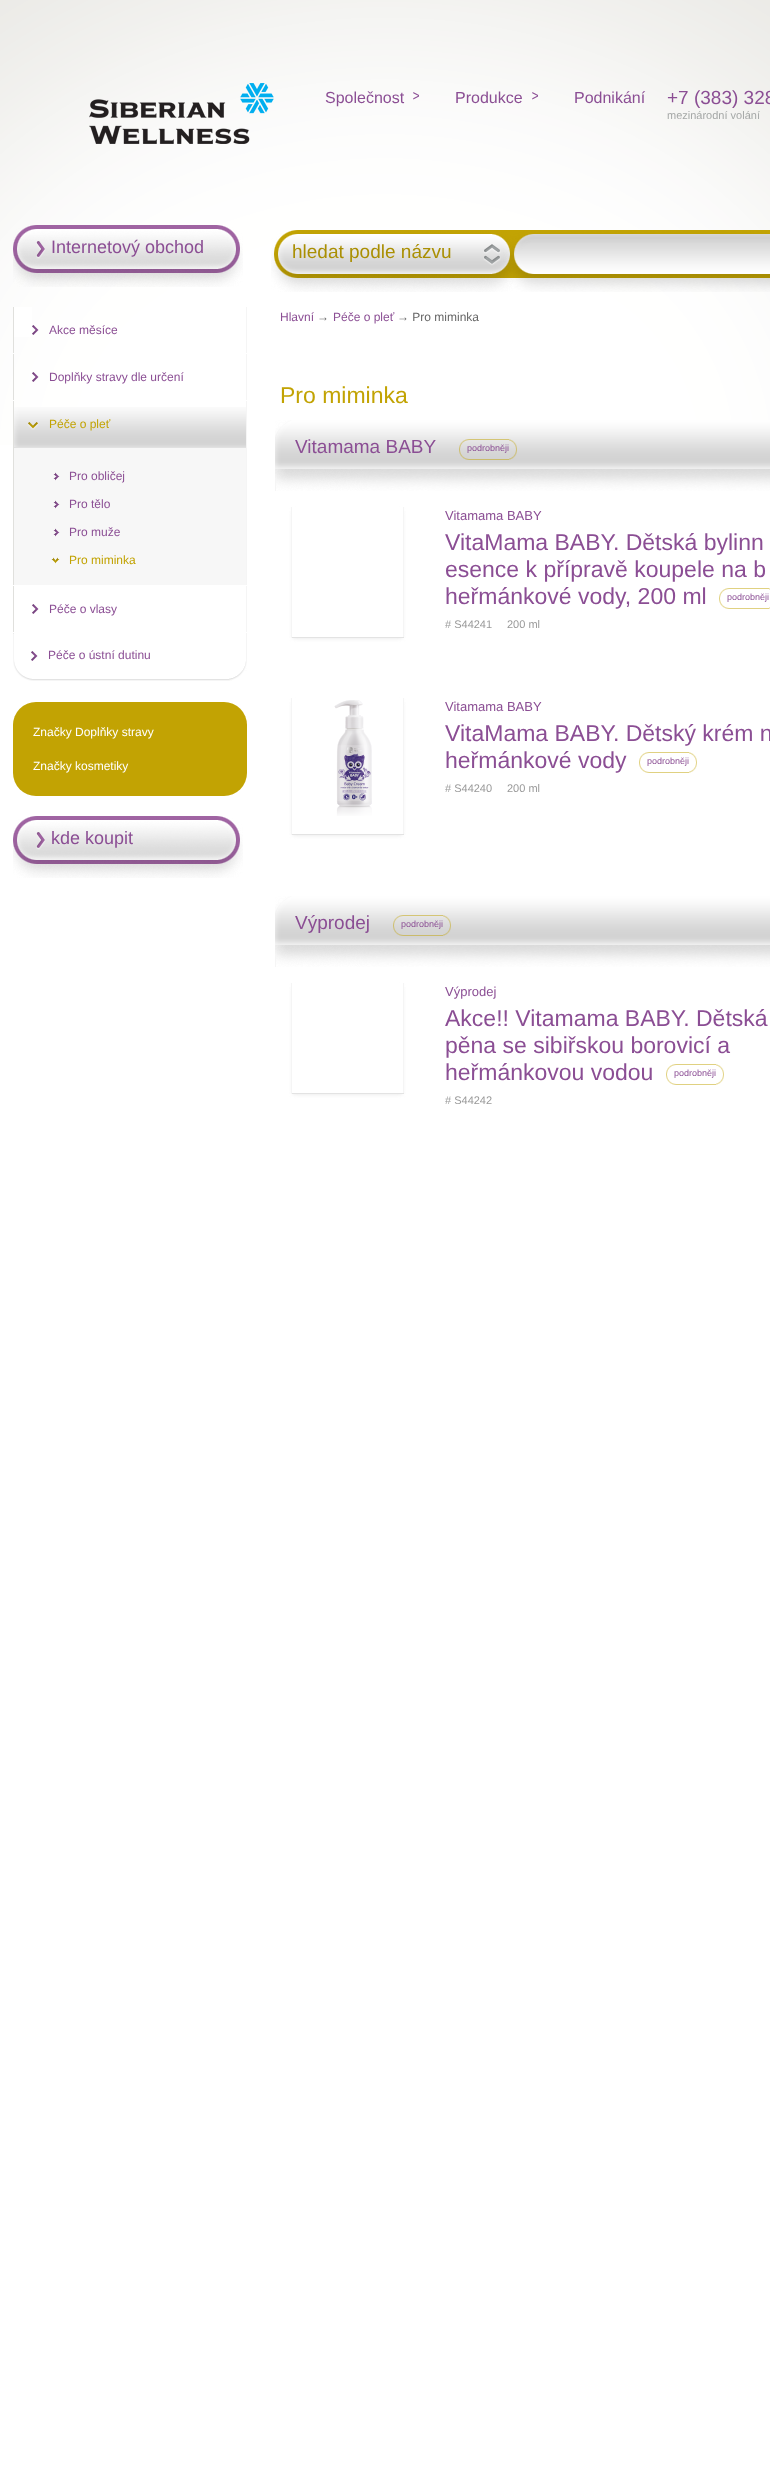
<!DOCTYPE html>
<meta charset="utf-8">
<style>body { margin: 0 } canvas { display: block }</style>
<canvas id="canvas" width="770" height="2484"></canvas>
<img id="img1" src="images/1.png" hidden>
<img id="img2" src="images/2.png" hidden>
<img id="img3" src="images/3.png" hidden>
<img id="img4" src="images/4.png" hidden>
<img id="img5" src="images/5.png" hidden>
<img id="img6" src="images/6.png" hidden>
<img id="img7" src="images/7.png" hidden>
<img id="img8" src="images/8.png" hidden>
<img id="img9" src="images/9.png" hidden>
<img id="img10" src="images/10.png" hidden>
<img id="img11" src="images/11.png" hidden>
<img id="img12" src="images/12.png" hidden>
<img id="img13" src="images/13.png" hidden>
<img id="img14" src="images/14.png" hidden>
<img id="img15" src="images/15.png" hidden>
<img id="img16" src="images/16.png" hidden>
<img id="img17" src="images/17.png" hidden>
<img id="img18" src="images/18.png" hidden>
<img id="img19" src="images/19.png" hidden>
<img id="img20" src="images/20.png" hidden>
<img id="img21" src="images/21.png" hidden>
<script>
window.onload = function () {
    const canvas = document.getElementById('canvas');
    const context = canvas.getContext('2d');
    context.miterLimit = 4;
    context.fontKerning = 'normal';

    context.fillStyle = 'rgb(255, 255, 255)';
    context.fillRect(0, 0, 770, 2484);
    context.drawImage(document.getElementById('img1'), 0, 0, 770, 445);
    context.drawImage(document.getElementById('img2'), 89, 83, 185, 61);
    context.drawImage(document.getElementById('img3'), 207, 225, 36, 62);
    context.drawImage(document.getElementById('img4'), 13, 225, 194, 62);
    context.fillStyle = 'rgb(245, 245, 245)';
    context.fillRect(246, 307, 1, 46);
    context.fillStyle = 'rgb(224, 224, 221)';
    context.fillRect(13, 307, 1, 46);
    context.fillStyle = 'rgb(255, 255, 255)';
    context.fillRect(14, 307, 18, 30);
    context.drawImage(document.getElementById('img5'), 32, 325, 7, 10);
    context.fillStyle = 'rgb(245, 245, 245)';
    context.fillRect(246, 354, 1, 46);
    context.fillStyle = 'rgb(224, 224, 221)';
    context.fillRect(13, 354, 1, 46);
    context.drawImage(document.getElementById('img5'), 32, 372, 7, 10);
    context.fillStyle = 'rgb(245, 245, 245)';
    context.fillRect(246, 401, 1, 184);
    context.fillStyle = 'rgb(224, 224, 221)';
    context.fillRect(13, 401, 1, 184);
    context.drawImage(document.getElementById('img6'), 14, 407, 232, 40);
    context.fillStyle = 'rgb(225, 225, 225)';
    context.fillRect(14, 447, 232, 1);
    context.fillStyle = 'rgb(247, 247, 247)';
    context.fillRect(14, 448, 232, 137);
    context.drawImage(document.getElementById('img7'), 53, 472, 7, 9);
    context.drawImage(document.getElementById('img7'), 53, 500, 7, 9);
    context.drawImage(document.getElementById('img7'), 53, 528, 7, 9);
    context.drawImage(document.getElementById('img8'), 51, 557, 9, 7);
    context.fillStyle = 'rgb(245, 245, 245)';
    context.fillRect(246, 586, 1, 46);
    context.fillStyle = 'rgb(224, 224, 221)';
    context.fillRect(13, 586, 1, 46);
    context.drawImage(document.getElementById('img5'), 32, 604, 7, 10);
    context.drawImage(document.getElementById('img9'), 13, 633, 233, 48);
    context.drawImage(document.getElementById('img10'), 229, 633, 18, 48);
    context.fillStyle = 'rgb(194, 163, 3)';
    context.beginPath();
    context.roundRect(13, 702, 234, 94, 23);
    context.fill();
    context.drawImage(document.getElementById('img11'), 207, 816, 36, 62);
    context.drawImage(document.getElementById('img12'), 13, 816, 194, 62);
    context.drawImage(document.getElementById('img13'), 271, 230, 241, 62);
    context.drawImage(document.getElementById('img14'), 512, 230, 258, 62);
    context.drawImage(document.getElementById('img15'), 275, 420, 495, 71);
    context.drawImage(document.getElementById('img16'), 459, 439, 50, 21);
    context.drawImage(document.getElementById('img17'), 509, 439, 8, 21);
    context.save();
    context.beginPath();
    context.moveTo(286, 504);
    context.lineTo(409, 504);
    context.lineTo(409, 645);
    context.lineTo(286, 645);
    context.closePath();
    context.moveTo(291, 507);
    context.lineTo(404, 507);
    context.lineTo(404, 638);
    context.lineTo(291, 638);
    context.closePath();
    context.clip('evenodd');
    context.fillStyle = 'rgb(227, 227, 227)';
    context.filter = 'blur(2px)';
    context.beginPath();
    context.rect(293, 511, 109, 127);
    context.fill();
    context.filter = 'none';
    context.restore();
    context.fillStyle = 'rgb(245, 245, 245)';
    context.fillRect(403, 507, 1, 131);
    context.fillStyle = 'rgb(227, 227, 227)';
    context.fillRect(291, 637, 113, 1);
    context.fillStyle = 'rgb(245, 245, 245)';
    context.fillRect(291, 507, 1, 131);
    context.drawImage(document.getElementById('img18'), 719, 588, 50, 21);
    context.drawImage(document.getElementById('img19'), 769, 588, 1, 21);
    context.save();
    context.beginPath();
    context.moveTo(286, 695);
    context.lineTo(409, 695);
    context.lineTo(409, 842);
    context.lineTo(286, 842);
    context.closePath();
    context.moveTo(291, 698);
    context.lineTo(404, 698);
    context.lineTo(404, 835);
    context.lineTo(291, 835);
    context.closePath();
    context.clip('evenodd');
    context.fillStyle = 'rgb(227, 227, 227)';
    context.filter = 'blur(2px)';
    context.beginPath();
    context.rect(293, 702, 109, 133);
    context.fill();
    context.filter = 'none';
    context.restore();
    context.fillRect(403, 698, 1, 137);
    context.fillStyle = 'rgb(227, 227, 227)';
    context.fillRect(291, 834, 113, 1);
    context.fillStyle = 'rgb(245, 245, 245)';
    context.fillRect(291, 698, 1, 137);
    context.drawImage(document.getElementById('img20'), 334, 700, 38, 116);
    context.drawImage(document.getElementById('img18'), 639, 752, 50, 21);
    context.drawImage(document.getElementById('img21'), 689, 752, 8, 21);
    context.drawImage(document.getElementById('img15'), 275, 896, 495, 71);
    context.drawImage(document.getElementById('img16'), 393, 915, 50, 21);
    context.drawImage(document.getElementById('img17'), 443, 915, 8, 21);
    context.save();
    context.beginPath();
    context.moveTo(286, 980);
    context.lineTo(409, 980);
    context.lineTo(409, 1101);
    context.lineTo(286, 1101);
    context.closePath();
    context.moveTo(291, 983);
    context.lineTo(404, 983);
    context.lineTo(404, 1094);
    context.lineTo(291, 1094);
    context.closePath();
    context.clip('evenodd');
    context.fillStyle = 'rgb(227, 227, 227)';
    context.filter = 'blur(2px)';
    context.beginPath();
    context.rect(293, 987, 109, 107);
    context.fill();
    context.filter = 'none';
    context.restore();
    context.fillRect(403, 983, 1, 111);
    context.fillStyle = 'rgb(227, 227, 227)';
    context.fillRect(291, 1093, 113, 1);
    context.fillStyle = 'rgb(245, 245, 245)';
    context.fillRect(291, 983, 1, 111);
    context.drawImage(document.getElementById('img18'), 666, 1064, 50, 21);
    context.drawImage(document.getElementById('img21'), 716, 1064, 8, 21);
    context.font = '16px Liberation Sans';
    context.fillStyle = 'rgb(139, 78, 148)';
    context.fillText('Společnost', 325, 103);
    context.letterSpacing = '2px';
    context.save();
    context.translate(408, 92);
    context.rotate(90 * Math.PI / 180);
    context.fillText('^', 0, 0);
    context.restore();
    context.letterSpacing = '0px';
    context.fillText('Produkce', 455, 103);
    context.letterSpacing = '2px';
    context.save();
    context.translate(527, 92);
    context.rotate(90 * Math.PI / 180);
    context.fillText('^', 0, 0);
    context.restore();
    context.letterSpacing = '0px';
    context.fillText('Podnikání', 574, 103);
    context.font = '19px Liberation Sans';
    context.fillText('+7 (383) 328', 667, 104);
    context.font = '11px Liberation Sans';
    context.fillStyle = 'rgb(165, 168, 167)';
    context.fillText('mezinárodní volání', 667, 119);
    context.font = '18px Liberation Sans';
    context.fillStyle = 'rgb(139, 78, 148)';
    context.fillText('Internetový obchod', 51, 253);
    context.font = '12px Liberation Sans';
    context.fillText('Akce měsíce', 49, 334);
    context.fillText('Doplňky stravy dle určení', 49, 381);
    context.fillStyle = 'rgb(194, 163, 3)';
    context.fillText('Péče o pleť', 49, 428);
    context.fillStyle = 'rgb(139, 78, 148)';
    context.fillText('Pro obličej', 69, 480);
    context.fillText('Pro tělo', 69, 508);
    context.fillText('Pro muže', 69, 536);
    context.fillStyle = 'rgb(194, 163, 3)';
    context.fillText('Pro miminka', 69, 564);
    context.fillStyle = 'rgb(139, 78, 148)';
    context.fillText('Péče o vlasy', 49, 613);
    context.fillText('Péče o ústní dutinu', 48, 659);
    context.fillStyle = 'rgb(255, 255, 255)';
    context.fillText('Značky Doplňky stravy', 33, 736);
    context.fillText('Značky kosmetiky', 33, 770);
    context.font = '18px Liberation Sans';
    context.fillStyle = 'rgb(139, 78, 148)';
    context.fillText('kde koupit', 51, 844);
    context.font = '19px Liberation Sans';
    context.fillStyle = 'rgb(170, 143, 3)';
    context.fillText('hledat podle názvu', 292, 258);
    context.font = '12px Liberation Sans';
    context.fillStyle = 'rgb(139, 78, 148)';
    context.fillText('Hlavní', 280, 321);
    context.fillStyle = 'rgb(102, 102, 102)';
    context.fillText('→', 317, 321);
    context.fillStyle = 'rgb(139, 78, 148)';
    context.fillText('Péče o pleť', 333, 321);
    context.fillStyle = 'rgb(102, 102, 102)';
    context.fillText('→ Pro miminka', 397, 321);
    context.font = '23px Liberation Sans';
    context.fillStyle = 'rgb(194, 163, 3)';
    context.fillText('Pro miminka', 280, 403);
    context.font = '19px Liberation Sans';
    context.fillStyle = 'rgb(139, 78, 148)';
    context.fillText('Vitamama BABY', 295, 453);
    context.font = '9px Liberation Sans';
    context.fillText('podrobněji', 467, 451);
    context.font = '13px Liberation Sans';
    context.fillText('Vitamama BABY', 445, 520);
    context.font = '23px Liberation Sans';
    context.fillText('VitaMama BABY. Dětská bylinn', 445, 550);
    context.fillText('esence k přípravě koupele na b', 445, 577);
    context.fillText('heřmánkové vody, 200 ml', 445, 604);
    context.font = '9px Liberation Sans';
    context.fillText('podrobněji', 727, 600);
    context.font = '11px Liberation Sans';
    context.fillStyle = 'rgb(154, 154, 154)';
    context.fillText('# S44241', 445, 628);
    context.fillText('200 ml', 507, 628);
    context.font = '13px Liberation Sans';
    context.fillStyle = 'rgb(139, 78, 148)';
    context.fillText('Vitamama BABY', 445, 711);
    context.font = '23px Liberation Sans';
    context.fillText('VitaMama BABY. Dětský krém n', 445, 741);
    context.fillText('heřmánkové vody', 445, 768);
    context.font = '9px Liberation Sans';
    context.fillText('podrobněji', 647, 764);
    context.font = '11px Liberation Sans';
    context.fillStyle = 'rgb(154, 154, 154)';
    context.fillText('# S44240', 445, 792);
    context.fillText('200 ml', 507, 792);
    context.font = '19px Liberation Sans';
    context.fillStyle = 'rgb(139, 78, 148)';
    context.fillText('Výprodej', 295, 929);
    context.font = '9px Liberation Sans';
    context.fillText('podrobněji', 401, 927);
    context.font = '13px Liberation Sans';
    context.fillText('Výprodej', 445, 996);
    context.font = '23px Liberation Sans';
    context.fillText('Akce!! Vitamama BABY. Dětská', 445, 1026);
    context.fillText('pěna se sibiřskou borovicí a', 445, 1053);
    context.fillText('heřmánkovou vodou', 445, 1080);
    context.font = '9px Liberation Sans';
    context.fillText('podrobněji', 674, 1076);
    context.font = '11px Liberation Sans';
    context.fillStyle = 'rgb(154, 154, 154)';
    context.fillText('# S44242', 445, 1104);
};
</script>
